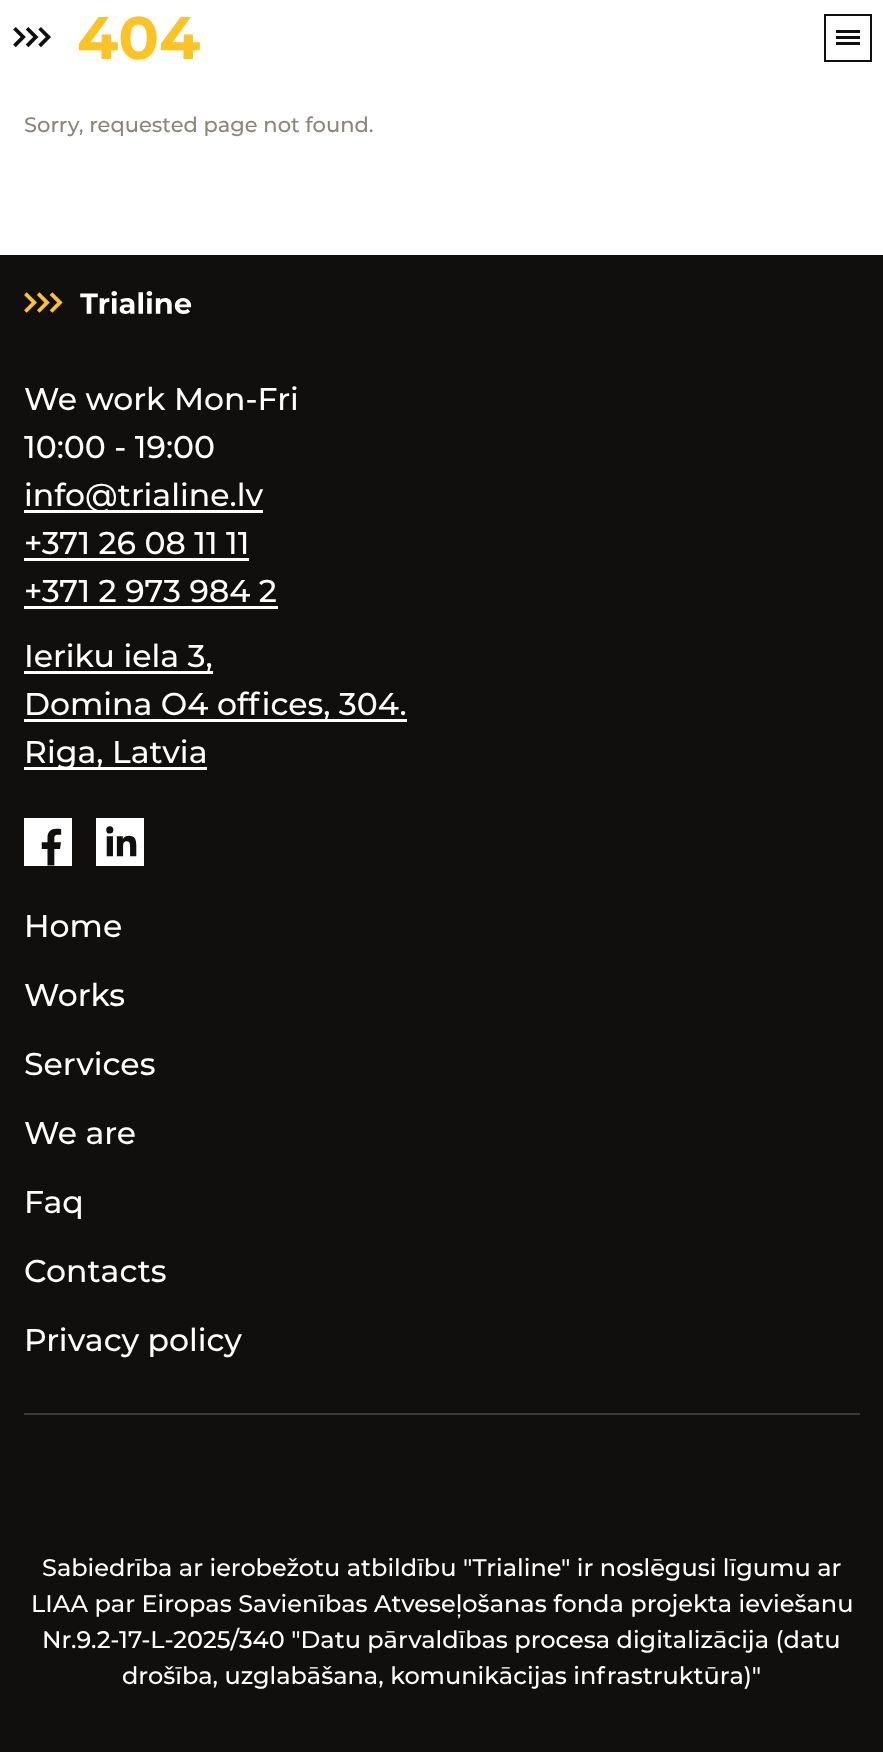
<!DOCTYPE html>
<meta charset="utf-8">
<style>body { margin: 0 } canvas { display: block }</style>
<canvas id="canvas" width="883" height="1752"></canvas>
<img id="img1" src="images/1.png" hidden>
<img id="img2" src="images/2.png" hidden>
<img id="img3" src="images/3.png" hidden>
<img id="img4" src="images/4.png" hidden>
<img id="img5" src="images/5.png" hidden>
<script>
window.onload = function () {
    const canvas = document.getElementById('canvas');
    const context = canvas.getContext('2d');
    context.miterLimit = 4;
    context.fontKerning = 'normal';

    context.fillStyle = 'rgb(255, 255, 255)';
    context.fillRect(0, 0, 883, 1752);
    context.drawImage(document.getElementById('img1'), 13, 27, 38, 21);
    context.strokeStyle = 'rgb(16, 15, 14)';
    context.lineWidth = 2;
    context.strokeRect(825, 15, 46, 46);
    context.fillStyle = 'rgb(16, 15, 14)';
    context.fillRect(836, 30, 24, 3);
    context.fillRect(836, 36, 24, 3);
    context.fillRect(836, 42, 24, 3);
    context.fillRect(0, 255, 883, 1497);
    context.drawImage(document.getElementById('img2'), 24, 292, 39, 21);
    context.drawImage(document.getElementById('img3'), 80, 291, 112, 23);
    context.fillStyle = 'rgb(255, 255, 255)';
    context.fillRect(24, 510, 239, 3);
    context.fillRect(24, 558, 225, 3);
    context.fillRect(24, 606, 254, 3);
    context.fillRect(24, 671, 189, 3);
    context.fillRect(24, 719, 383, 3);
    context.fillRect(24, 767, 183, 3);
    context.fillRect(24, 818, 48, 48);
    context.drawImage(document.getElementById('img4'), 41, 828, 21, 38);
    context.fillRect(96, 818, 48, 48);
    context.drawImage(document.getElementById('img5'), 106, 826, 31, 31);
    context.fillStyle = 'rgb(59, 58, 58)';
    context.fillRect(24, 1413, 836, 2);
    context.font = 'bold 60px Montserrat';
    context.fillStyle = 'rgb(251, 195, 35)';
    context.fillText('404', 77, 59);
    context.font = '500 21px Montserrat';
    context.fillStyle = 'rgb(139, 134, 124)';
    context.fillText('Sorry, requested page not found.', 24, 132);
    context.font = '500 31.5px Montserrat';
    context.fillStyle = 'rgb(255, 255, 255)';
    context.fillText('We work Mon-Fri', 24, 410);
    context.fillText('10:00 - 19:00', 24, 458);
    context.fillText('info@trialine.lv', 24, 506);
    context.fillText('+371 26 08 11 11', 24, 554);
    context.fillText('+371 2 973 984 2', 24, 602);
    context.fillText('Ieriku iela 3,', 24, 667);
    context.fillText('Domina O4 offices, 304.', 24, 715);
    context.fillText('Riga, Latvia', 24, 763);
    context.fillText('Home', 24, 937);
    context.fillText('Works', 24, 1006);
    context.fillText('Services', 24, 1075);
    context.fillText('We are', 24, 1144);
    context.fillText('Faq', 24, 1213);
    context.fillText('Contacts', 24, 1282);
    context.fillText('Privacy policy', 24, 1351);
    context.font = '500 24px Montserrat';
    context.fillText('Sabiedrība ar ierobežotu atbildību "Trialine" ir noslēgusi līgumu ar', 42, 1576);
    context.fillText('LIAA par Eiropas Savienības Atveseļošanas fonda projekta ieviešanu', 31, 1612);
    context.fillText('Nr.9.2-17-L-2025/340 "Datu pārvaldības procesa digitalizācija (datu', 42, 1648);
    context.fillText('drošība, uzglabāšana, komunikācijas infrastruktūra)"', 122, 1684);
};
</script>
